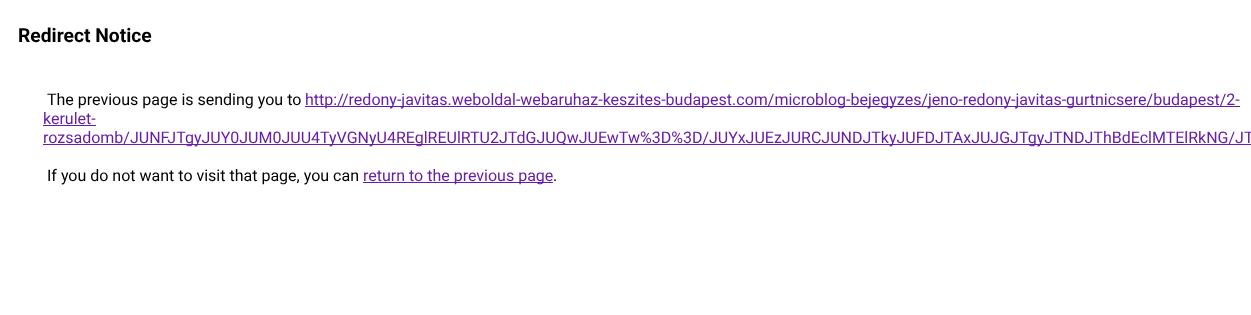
<!DOCTYPE html>
<meta charset="utf-8">
<style>body { margin: 0 } canvas { display: block }</style>
<canvas id="canvas" width="1251" height="315"></canvas>
<script>
window.onload = function () {
    const canvas = document.getElementById('canvas');
    const context = canvas.getContext('2d');
    context.miterLimit = 4;
    context.fontKerning = 'normal';

    context.fillStyle = 'rgb(255, 255, 255)';
    context.fillRect(0, 0, 1251, 315);
    context.fillStyle = 'rgb(104, 29, 168)';
    context.fillRect(305, 106, 935, 1);
    context.fillRect(43, 125, 53, 1);
    context.fillRect(43, 144, 1208, 1);
    context.fillRect(363, 182, 190, 1);
    context.font = 'bold 19.25px Roboto';
    context.fillStyle = 'rgb(0, 0, 0)';
    context.fillText('Redirect Notice', 18, 42);
    context.font = '16px Roboto';
    context.fillText('The previous page is sending you to', 47, 105);
    context.fillStyle = 'rgb(104, 29, 168)';
    context.fillText('http://redony-javitas.weboldal-webaruhaz-keszites-budapest.com/microblog-bejegyzes/jeno-redony-javitas-gurtnicsere/budapest/2-', 305, 105);
    context.fillText('kerulet-', 43, 124);
    context.fillText('rozsadomb/JUNFJTgyJUY0JUM0JUU4TyVGNyU4REglREUlRTU2JTdGJUQwJUEwTw%3D%3D/JUYxJUEzJURCJUNDJTkyJUFDJTAxJUJGJTgyJTNDJThBdEclMTElRkNG/JT', 43, 143);
    context.fillStyle = 'rgb(0, 0, 0)';
    context.fillText('If you do not want to visit that page, you can', 47, 181);
    context.fillStyle = 'rgb(104, 29, 168)';
    context.fillText('return to the previous page', 363, 181);
    context.fillStyle = 'rgb(0, 0, 0)';
    context.fillText('.', 553, 181);
};
</script>
